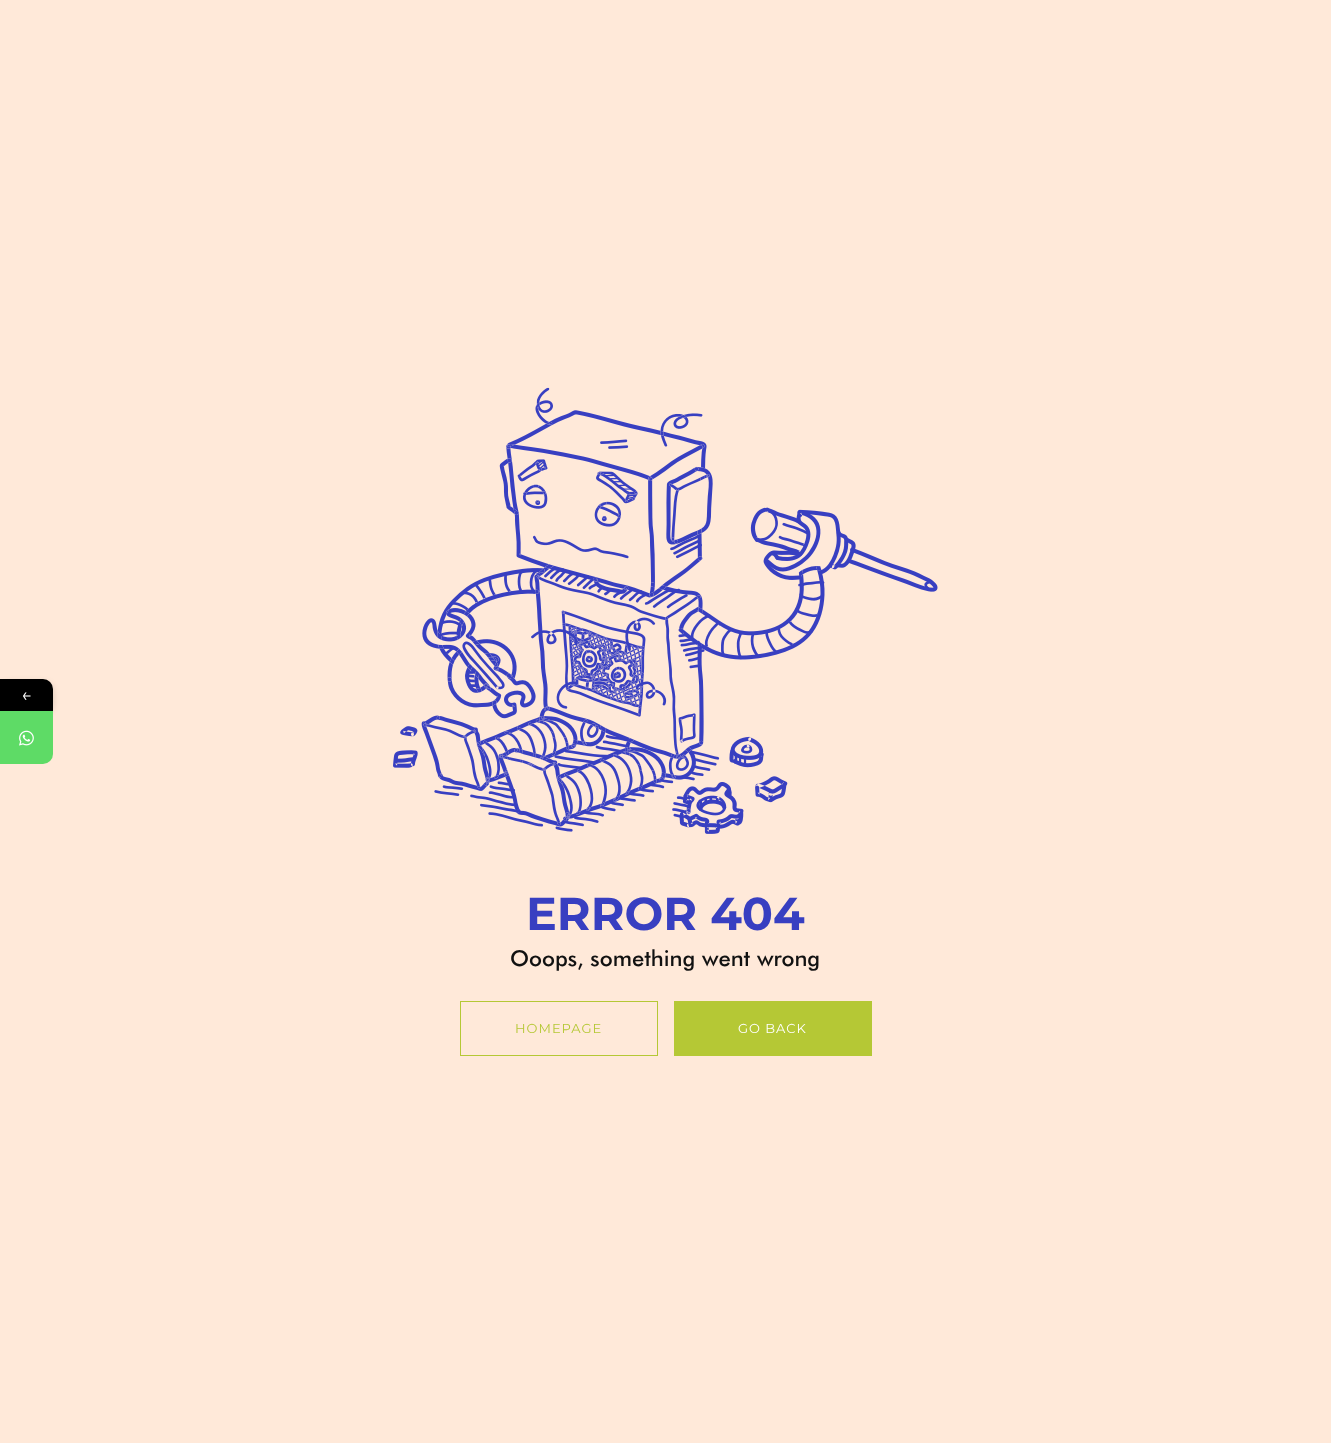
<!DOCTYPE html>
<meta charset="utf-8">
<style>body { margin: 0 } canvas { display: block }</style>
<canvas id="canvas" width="1331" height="1443"></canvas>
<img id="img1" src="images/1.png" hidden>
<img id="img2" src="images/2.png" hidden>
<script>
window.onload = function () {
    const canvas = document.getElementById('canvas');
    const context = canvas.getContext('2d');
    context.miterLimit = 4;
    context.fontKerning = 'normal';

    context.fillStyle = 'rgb(255, 233, 217)';
    context.fillRect(0, 0, 1331, 1443);
    context.fillStyle = 'rgba(0, 0, 0, 0.16)';
    context.filter = 'blur(3px)';
    context.beginPath();
    context.roundRect(0, 682, 53, 32, 10);
    context.fill();
    context.filter = 'none';
    context.fillStyle = 'rgb(0, 0, 0)';
    context.beginPath();
    context.roundRect(0, 679, 53, 32, [0, 10, 0, 0]);
    context.fill();
    context.fillStyle = 'rgb(94, 219, 102)';
    context.beginPath();
    context.roundRect(0, 711, 53, 53, [0, 0, 10, 0]);
    context.fill();
    context.drawImage(document.getElementById('img1'), 19, 730, 15, 16);
    context.drawImage(document.getElementById('img2'), 393, 387, 545, 447);
    context.strokeStyle = 'rgb(181, 200, 53)';
    context.strokeRect(460.5, 1001.5, 197, 54);
    context.fillStyle = 'rgb(181, 200, 53)';
    context.fillRect(674, 1001, 198, 55);
    context.font = '18px Montserrat';
    context.fillStyle = 'rgb(255, 255, 255)';
    context.fillText('←', 21, 701);
    context.font = 'bold 46px Montserrat';
    context.fillStyle = 'rgb(56, 63, 193)';
    context.fillText('ERROR 404', 526, 930);
    context.font = '500 22px Futura';
    context.fillStyle = 'rgb(17, 17, 17)';
    context.fillText('Ooops, something went wrong', 510, 966);
    context.letterSpacing = '1px';
    context.font = '13px Montserrat';
    context.fillStyle = 'rgb(181, 200, 53)';
    context.fillText('HOMEPAGE', 515, 1033);
    context.fillStyle = 'rgb(255, 255, 255)';
    context.fillText('GO BACK', 738, 1033);
};
</script>
